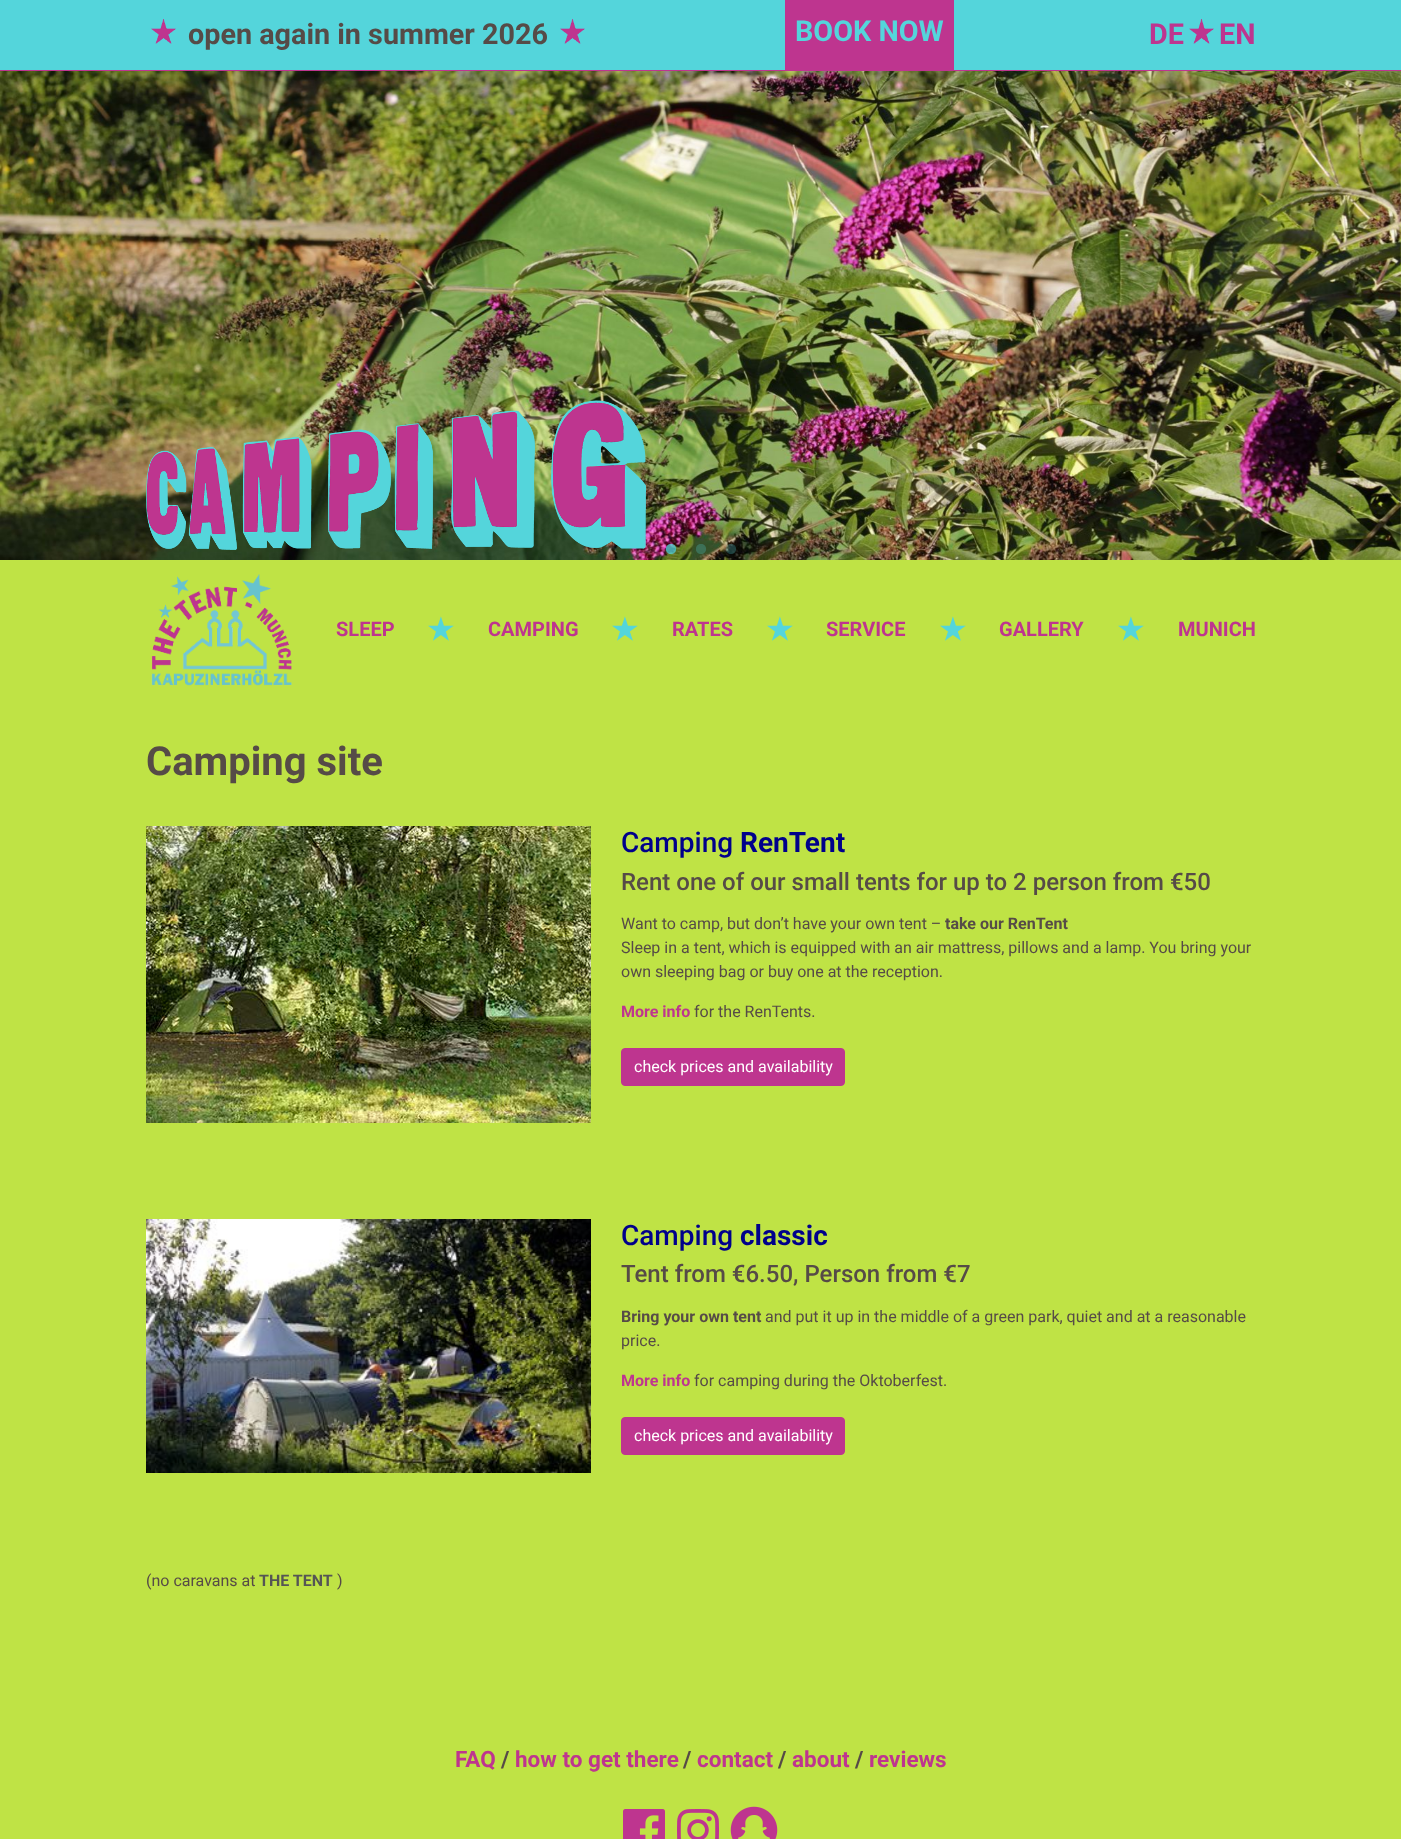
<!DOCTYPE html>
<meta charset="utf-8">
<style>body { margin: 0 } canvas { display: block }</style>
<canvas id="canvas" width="1401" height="1839"></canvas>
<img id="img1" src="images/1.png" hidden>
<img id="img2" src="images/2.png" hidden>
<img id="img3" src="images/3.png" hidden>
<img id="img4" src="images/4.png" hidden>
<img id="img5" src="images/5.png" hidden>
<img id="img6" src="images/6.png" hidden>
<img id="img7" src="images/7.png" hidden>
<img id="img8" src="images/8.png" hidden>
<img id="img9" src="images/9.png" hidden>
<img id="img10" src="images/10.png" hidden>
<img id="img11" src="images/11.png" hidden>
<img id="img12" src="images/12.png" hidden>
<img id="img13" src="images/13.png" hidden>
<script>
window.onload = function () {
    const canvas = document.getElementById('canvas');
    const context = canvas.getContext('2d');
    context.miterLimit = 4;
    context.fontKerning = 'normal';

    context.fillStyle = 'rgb(191, 227, 69)';
    context.fillRect(0, 0, 1401, 1839);
    context.fillStyle = 'rgb(84, 213, 219)';
    context.fillRect(0, 0, 1401, 70);
    context.fillStyle = 'rgb(190, 53, 143)';
    context.fillRect(0, 70, 1401, 1);
    context.drawImage(document.getElementById('img1'), 151, 19, 25, 25);
    context.drawImage(document.getElementById('img2'), 560, 19, 25, 25);
    context.fillRect(785, 0, 169, 70);
    context.drawImage(document.getElementById('img1'), 1189, 19, 25, 25);
    context.drawImage(document.getElementById('img3'), 0, 71, 1401, 489);
    context.drawImage(document.getElementById('img4'), 665, 543, 12, 12);
    context.drawImage(document.getElementById('img5'), 696, 544, 10, 10);
    context.drawImage(document.getElementById('img6'), 726, 544, 10, 10);
    context.drawImage(document.getElementById('img7'), 146, 400, 500, 150);
    context.drawImage(document.getElementById('img8'), 151, 574, 141, 112);
    context.drawImage(document.getElementById('img9'), 146, 826, 445, 297);
    context.beginPath();
    context.roundRect(621.5, 1048.5, 223, 37, 3.5);
    context.fill();
    context.strokeStyle = 'rgb(190, 53, 143)';
    context.stroke();
    context.drawImage(document.getElementById('img10'), 146, 1219, 445, 254);
    context.beginPath();
    context.roundRect(621.5, 1417.5, 223, 37, 3.5);
    context.fill();
    context.stroke();
    context.drawImage(document.getElementById('img11'), 623, 1809, 42, 30);
    context.drawImage(document.getElementById('img12'), 677, 1809, 42, 30);
    context.drawImage(document.getElementById('img13'), 730, 1806, 48, 33);
    context.font = 'bold 28.75px Roboto';
    context.fillStyle = 'rgb(86, 75, 71)';
    context.fillText('open again in summer 2026', 188, 44);
    context.fillStyle = 'rgb(84, 213, 219)';
    context.fillText('BOOK NOW', 795, 41);
    context.fillStyle = 'rgb(190, 53, 143)';
    context.fillText('DE', 1149, 44);
    context.fillText('EN', 1219, 44);
    context.font = 'bold 20px Roboto';
    context.fillText('SLEEP', 336, 636);
    context.font = 'bold 30px DejaVu Sans';
    context.fillStyle = 'rgb(84, 213, 219)';
    context.fillText('★', 427, 640);
    context.font = 'bold 20px Roboto';
    context.fillStyle = 'rgb(190, 53, 143)';
    context.fillText('CAMPING', 488, 636);
    context.font = 'bold 30px DejaVu Sans';
    context.fillStyle = 'rgb(84, 213, 219)';
    context.fillText('★', 611, 640);
    context.font = 'bold 20px Roboto';
    context.fillStyle = 'rgb(190, 53, 143)';
    context.fillText('RATES', 672, 636);
    context.font = 'bold 30px DejaVu Sans';
    context.fillStyle = 'rgb(84, 213, 219)';
    context.fillText('★', 766, 640);
    context.font = 'bold 20px Roboto';
    context.fillStyle = 'rgb(190, 53, 143)';
    context.fillText('SERVICE', 826, 636);
    context.font = 'bold 30px DejaVu Sans';
    context.fillStyle = 'rgb(84, 213, 219)';
    context.fillText('★', 939, 640);
    context.font = 'bold 20px Roboto';
    context.fillStyle = 'rgb(190, 53, 143)';
    context.fillText('GALLERY', 999, 636);
    context.font = 'bold 30px DejaVu Sans';
    context.fillStyle = 'rgb(84, 213, 219)';
    context.fillText('★', 1117, 640);
    context.font = 'bold 20px Roboto';
    context.fillStyle = 'rgb(190, 53, 143)';
    context.fillText('MUNICH', 1178, 636);
    context.font = 'bold 40px Roboto';
    context.fillStyle = 'rgb(86, 75, 71)';
    context.fillText('Camping site', 146, 775);
    context.font = '500 28px Roboto';
    context.fillStyle = 'rgb(0, 0, 139)';
    context.fillText('Camping', 621, 852);
    context.font = 'bold 28px Roboto';
    context.fillText('RenTent', 740, 852);
    context.font = '500 24px Roboto';
    context.fillStyle = 'rgb(86, 75, 71)';
    context.fillText('Rent one of our small tents for up to 2 person from €50', 621, 890);
    context.font = '16px Roboto';
    context.fillText('Want to camp, but don’t have your own tent –', 621, 929);
    context.font = 'bold 16px Roboto';
    context.fillText('take our RenTent', 945, 929);
    context.font = '16px Roboto';
    context.fillText('Sleep in a tent, which is equipped with an air mattress, pillows and a lamp. You bring your', 621, 953);
    context.fillText('own sleeping bag or buy one at the reception.', 621, 977);
    context.font = 'bold 16px Roboto';
    context.fillStyle = 'rgb(190, 53, 143)';
    context.fillText('More info', 621, 1017);
    context.font = '16px Roboto';
    context.fillStyle = 'rgb(86, 75, 71)';
    context.fillText('for the RenTents.', 694, 1017);
    context.fillStyle = 'rgb(255, 255, 255)';
    context.fillText('check prices and availability', 634, 1072);
    context.font = '500 28px Roboto';
    context.fillStyle = 'rgb(0, 0, 139)';
    context.fillText('Camping', 621, 1245);
    context.font = 'bold 28px Roboto';
    context.fillText('classic', 740, 1245);
    context.font = '500 24px Roboto';
    context.fillStyle = 'rgb(86, 75, 71)';
    context.fillText('Tent from €6.50, Person from €7', 621, 1282);
    context.font = 'bold 16px Roboto';
    context.fillText('Bring your own tent', 621, 1322);
    context.font = '16px Roboto';
    context.fillText('and put it up in the middle of a green park, quiet and at a reasonable', 765, 1322);
    context.fillText('price.', 621, 1346);
    context.font = 'bold 16px Roboto';
    context.fillStyle = 'rgb(190, 53, 143)';
    context.fillText('More info', 621, 1386);
    context.font = '16px Roboto';
    context.fillStyle = 'rgb(86, 75, 71)';
    context.fillText('for camping during the Oktoberfest.', 694, 1386);
    context.fillStyle = 'rgb(255, 255, 255)';
    context.fillText('check prices and availability', 634, 1441);
    context.fillStyle = 'rgb(86, 75, 71)';
    context.fillText('(no caravans at', 146, 1586);
    context.font = 'bold 16px Roboto';
    context.fillStyle = 'rgb(85, 85, 85)';
    context.fillText('THE TENT', 259, 1586);
    context.font = '16px Roboto';
    context.fillStyle = 'rgb(86, 75, 71)';
    context.fillText(')', 337, 1586);
    context.font = 'bold 22.5px Roboto';
    context.fillStyle = 'rgb(190, 53, 143)';
    context.fillText('FAQ', 455, 1767);
    context.fillStyle = 'rgb(86, 75, 71)';
    context.fillText('/', 501, 1767);
    context.fillStyle = 'rgb(190, 53, 143)';
    context.fillText('how to get there', 515, 1767);
    context.fillStyle = 'rgb(86, 75, 71)';
    context.fillText('/', 683, 1767);
    context.fillStyle = 'rgb(190, 53, 143)';
    context.fillText('contact', 697, 1767);
    context.fillStyle = 'rgb(86, 75, 71)';
    context.fillText('/', 778, 1767);
    context.fillStyle = 'rgb(190, 53, 143)';
    context.fillText('about', 792, 1767);
    context.fillStyle = 'rgb(86, 75, 71)';
    context.fillText('/', 855, 1767);
    context.fillStyle = 'rgb(190, 53, 143)';
    context.fillText('reviews', 869, 1767);
};
</script>
